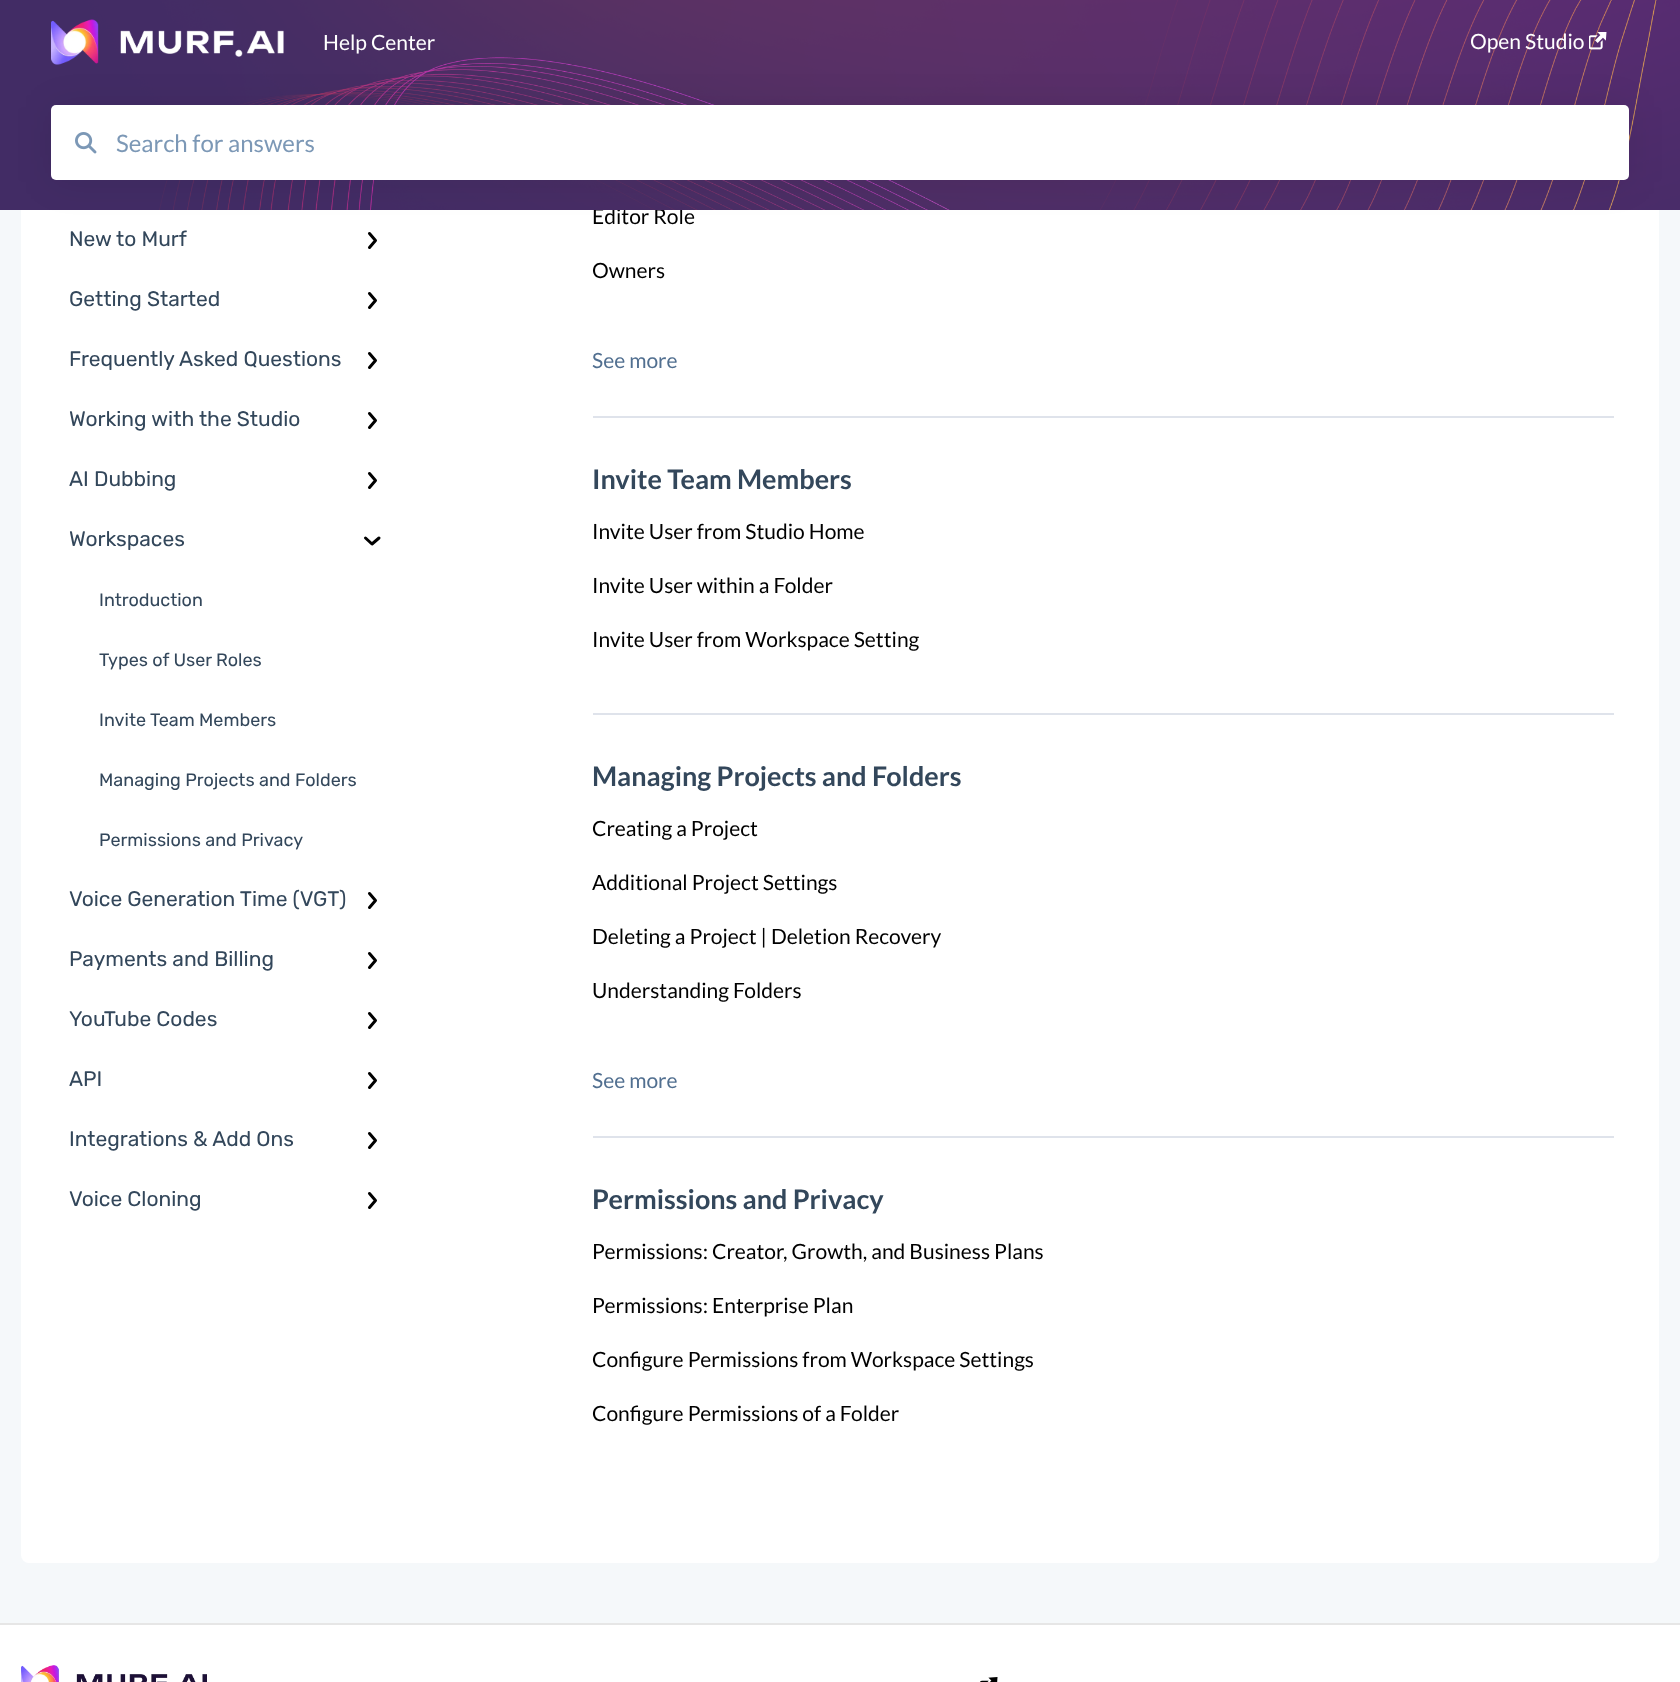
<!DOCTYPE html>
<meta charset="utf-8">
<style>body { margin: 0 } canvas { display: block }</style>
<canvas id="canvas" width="1680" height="1682"></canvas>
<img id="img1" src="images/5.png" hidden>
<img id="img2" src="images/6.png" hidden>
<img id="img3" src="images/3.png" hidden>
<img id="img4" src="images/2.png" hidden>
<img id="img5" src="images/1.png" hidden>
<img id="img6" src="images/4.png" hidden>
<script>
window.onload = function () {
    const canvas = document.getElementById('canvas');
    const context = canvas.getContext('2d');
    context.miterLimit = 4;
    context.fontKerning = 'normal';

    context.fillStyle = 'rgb(245, 248, 250)';
    context.fillRect(0, 0, 1680, 1682);
    context.fillStyle = 'rgb(255, 255, 255)';
    context.beginPath();
    context.roundRect(21, -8, 1638, 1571, 8);
    context.fill();
    context.beginPath();
    context.moveTo(369.5, 233.5);
    context.lineTo(375.5, 240.5);
    context.lineTo(369.5, 247.5);
    context.strokeStyle = 'rgb(0, 0, 0)';
    context.lineWidth = 3;
    context.lineCap = 'round';
    context.lineJoin = 'round';
    context.stroke();
    context.beginPath();
    context.moveTo(369.5, 293.5);
    context.lineTo(375.5, 300.5);
    context.lineTo(369.5, 307.5);
    context.stroke();
    context.beginPath();
    context.moveTo(369.5, 353.5);
    context.lineTo(375.5, 360.5);
    context.lineTo(369.5, 367.5);
    context.stroke();
    context.beginPath();
    context.moveTo(369.5, 413.5);
    context.lineTo(375.5, 420.5);
    context.lineTo(369.5, 427.5);
    context.stroke();
    context.beginPath();
    context.moveTo(369.5, 473.5);
    context.lineTo(375.5, 480.5);
    context.lineTo(369.5, 487.5);
    context.stroke();
    context.beginPath();
    context.moveTo(379, 538);
    context.lineTo(372, 544);
    context.lineTo(365.5, 538);
    context.stroke();
    context.beginPath();
    context.moveTo(369.5, 893.5);
    context.lineTo(375.5, 900.5);
    context.lineTo(369.5, 907.5);
    context.stroke();
    context.beginPath();
    context.moveTo(369.5, 953.5);
    context.lineTo(375.5, 960.5);
    context.lineTo(369.5, 967.5);
    context.stroke();
    context.beginPath();
    context.moveTo(369.5, 1013.5);
    context.lineTo(375.5, 1020.5);
    context.lineTo(369.5, 1027.5);
    context.stroke();
    context.beginPath();
    context.moveTo(369.5, 1073.5);
    context.lineTo(375.5, 1080.5);
    context.lineTo(369.5, 1087.5);
    context.stroke();
    context.beginPath();
    context.moveTo(369.5, 1133.5);
    context.lineTo(375.5, 1140.5);
    context.lineTo(369.5, 1147.5);
    context.stroke();
    context.beginPath();
    context.moveTo(369.5, 1193.5);
    context.lineTo(375.5, 1200.5);
    context.lineTo(369.5, 1207.5);
    context.stroke();
    context.fillStyle = 'rgb(223, 227, 235)';
    context.fillRect(593, 416, 1021, 2);
    context.fillRect(593, 713, 1021, 2);
    context.fillRect(593, 1136, 1021, 2);
    context.fillStyle = 'rgb(255, 255, 255)';
    context.fillRect(0, 1625, 1680, 57);
    context.fillStyle = 'rgb(230, 230, 230)';
    context.fillRect(0, 1623, 1680, 2);
    context.drawImage(document.getElementById('img1'), 21, 1665, 186, 17);
    context.drawImage(document.getElementById('img2'), 980, 1677, 18, 5);
    context.font = '21px Rubik';
    context.fillStyle = 'rgb(51, 71, 91)';
    context.fillText('New to Murf', 69, 246);
    context.fillText('Getting Started', 69, 306);
    context.fillText('Frequently Asked Questions', 69, 366);
    context.fillText('Working with the Studio', 69, 426);
    context.fillText('AI Dubbing', 69, 486);
    context.fillText('Workspaces', 69, 546);
    context.font = '18px Rubik';
    context.fillText('Introduction', 99, 606);
    context.fillText('Types of User Roles', 99, 666);
    context.fillText('Invite Team Members', 99, 726);
    context.fillText('Managing Projects and Folders', 99, 786);
    context.fillText('Permissions and Privacy', 99, 846);
    context.font = '21px Rubik';
    context.fillText('Voice Generation Time (VGT)', 69, 906);
    context.fillText('Payments and Billing', 69, 966);
    context.fillText('YouTube Codes', 69, 1026);
    context.fillText('API', 69, 1086);
    context.fillText('Integrations & Add Ons', 69, 1146);
    context.fillText('Voice Cloning', 69, 1206);
    context.font = '21px Lato';
    context.fillStyle = 'rgb(0, 0, 0)';
    context.fillText('Editor Role', 592, 224);
    context.drawImage(document.getElementById('img3'), 0, 0, 1680, 210);
    context.drawImage(document.getElementById('img4'), 1589, 32, 18, 18);
    context.fillStyle = 'rgba(0, 0, 0, 0.08)';
    context.filter = 'blur(18px)';
    context.beginPath();
    context.roundRect(51, 107, 1578, 75, 5);
    context.fill();
    context.filter = 'none';
    context.fillStyle = 'rgb(255, 255, 255)';
    context.fillText('Open Studio', 1470, 49);
    context.drawImage(document.getElementById('img5'), 51, 19, 233, 46);
    context.fillText('Help Center', 323, 50);
    context.beginPath();
    context.roundRect(51, 105, 1578, 75, 5);
    context.fill();
    context.drawImage(document.getElementById('img6'), 75, 132, 22, 22);
    context.font = '24px Lato';
    context.fillStyle = 'rgb(124, 152, 182)';
    context.fillText('Search for answers', 116, 152);
    context.font = '21px Lato';
    context.fillStyle = 'rgb(0, 0, 0)';
    context.fillText('Owners', 592, 278);
    context.fillStyle = 'rgb(81, 111, 144)';
    context.fillText('See more', 592, 368);
    context.font = 'bold 27px Lato';
    context.fillStyle = 'rgb(51, 71, 91)';
    context.fillText('Invite Team Members', 592, 489);
    context.font = '21px Lato';
    context.fillStyle = 'rgb(0, 0, 0)';
    context.fillText('Invite User from Studio Home', 592, 539);
    context.fillText('Invite User within a Folder', 592, 593);
    context.fillText('Invite User from Workspace Setting', 592, 647);
    context.font = 'bold 27px Lato';
    context.fillStyle = 'rgb(51, 71, 91)';
    context.fillText('Managing Projects and Folders', 592, 786);
    context.font = '21px Lato';
    context.fillStyle = 'rgb(0, 0, 0)';
    context.fillText('Creating a Project', 592, 836);
    context.fillText('Additional Project Settings', 592, 890);
    context.fillText('Deleting a Project | Deletion Recovery', 592, 944);
    context.fillText('Understanding Folders', 592, 998);
    context.fillStyle = 'rgb(81, 111, 144)';
    context.fillText('See more', 592, 1088);
    context.font = 'bold 27px Lato';
    context.fillStyle = 'rgb(51, 71, 91)';
    context.fillText('Permissions and Privacy', 592, 1209);
    context.font = '21px Lato';
    context.fillStyle = 'rgb(0, 0, 0)';
    context.fillText('Permissions: Creator, Growth, and Business Plans', 592, 1259);
    context.fillText('Permissions: Enterprise Plan', 592, 1313);
    context.fillText('Configure Permissions from Workspace Settings', 592, 1367);
    context.fillText('Configure Permissions of a Folder', 592, 1421);
};
</script>
